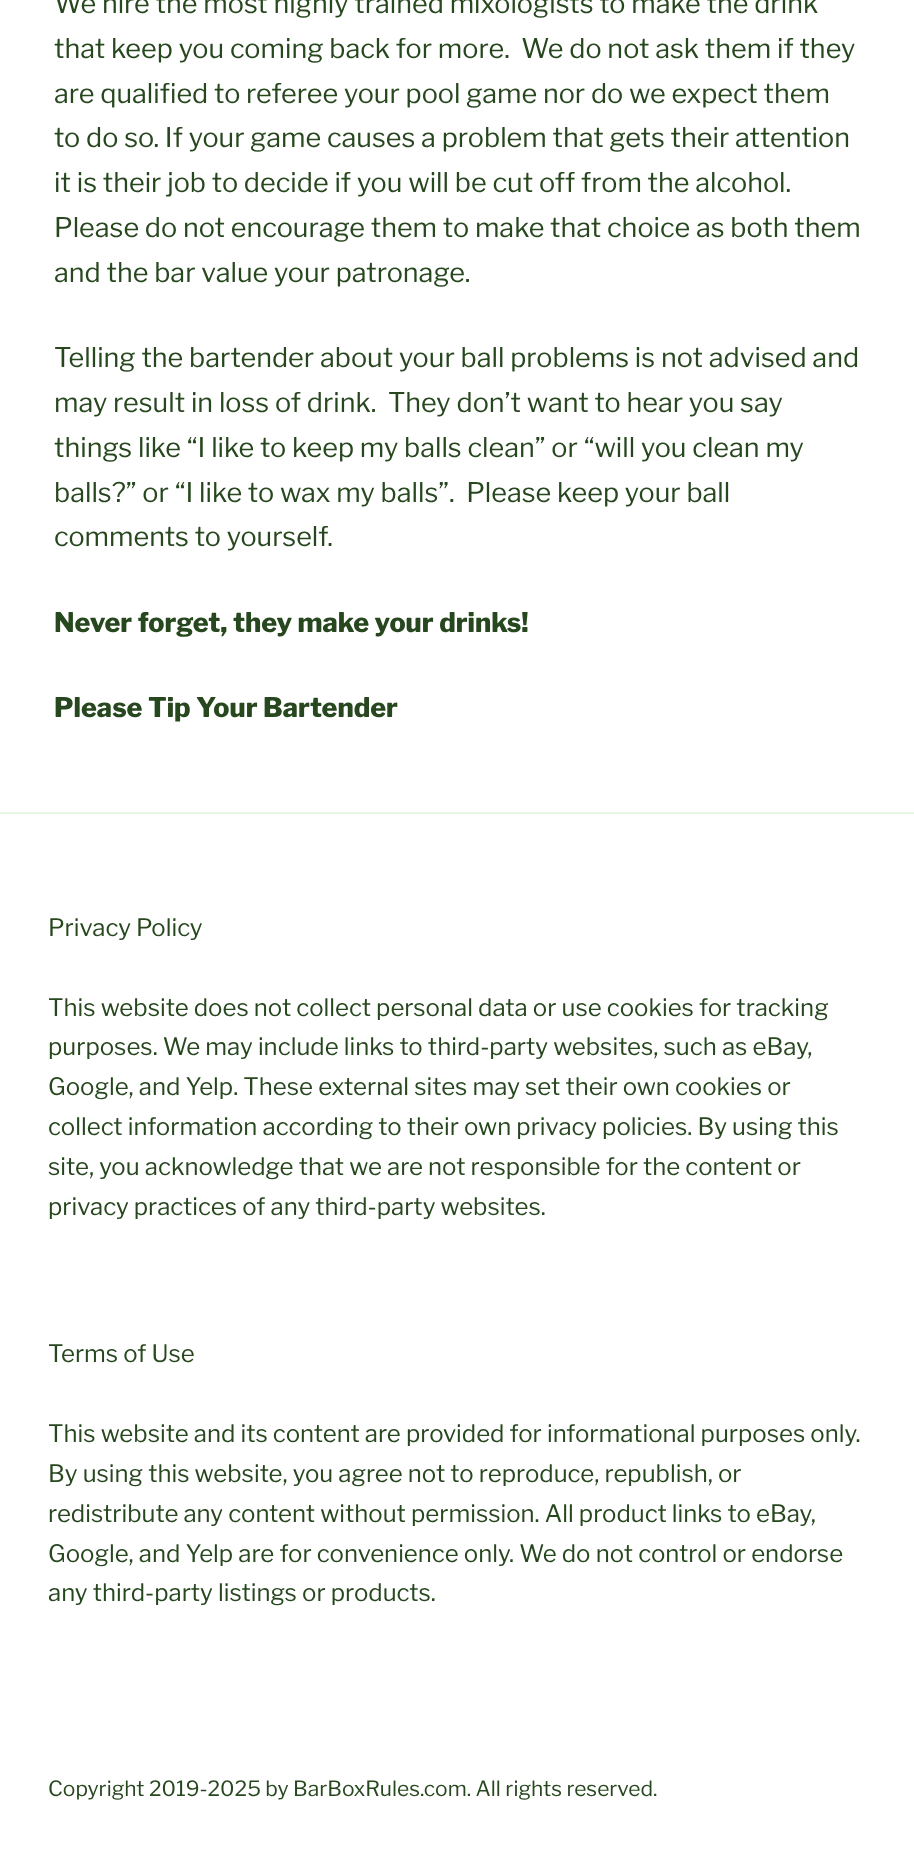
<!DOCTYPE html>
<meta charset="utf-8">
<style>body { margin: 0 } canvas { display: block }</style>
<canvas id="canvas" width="914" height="1859"></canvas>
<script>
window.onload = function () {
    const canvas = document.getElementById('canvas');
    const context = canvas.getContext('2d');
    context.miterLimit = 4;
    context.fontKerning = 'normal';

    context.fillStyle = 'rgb(255, 255, 255)';
    context.fillRect(0, 0, 914, 1859);
    context.fillStyle = 'rgb(232, 246, 228)';
    context.fillRect(0, 812, 914, 2);
    context.font = '100 27px Libre Franklin';
    context.fillStyle = 'rgb(39, 71, 31)';
    context.fillText('We hire the most highly trained mixologists to make the drink', 54, 13);
    context.fillText('that keep you coming back for more.  We do not ask them if they', 54, 58);
    context.fillText('are qualified to referee your pool game nor do we expect them', 54, 103);
    context.fillText('to do so. If your game causes a problem that gets their attention', 54, 147);
    context.fillText('it is their job to decide if you will be cut off from the alcohol.', 54, 192);
    context.fillText('Please do not encourage them to make that choice as both them', 54, 237);
    context.fillText('and the bar value your patronage.', 54, 282);
    context.fillText('Telling the bartender about your ball problems is not advised and', 54, 367);
    context.fillText('may result in loss of drink.  They don’t want to hear you say', 54, 412);
    context.fillText('things like “I like to keep my balls clean” or “will you clean my', 54, 457);
    context.fillText('balls?” or “I like to wax my balls”.  Please keep your ball', 54, 502);
    context.fillText('comments to yourself.', 54, 546);
    context.font = '100 27px "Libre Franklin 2"';
    context.fillText('Never forget, they make your drinks!', 54, 632);
    context.fillText('Please Tip Your Bartender', 54, 717);
    context.font = '100 24px Libre Franklin';
    context.fillText('Privacy Policy', 48, 936);
    context.fillText('This website does not collect personal data or use cookies for tracking', 48, 1016);
    context.fillText('purposes. We may include links to third-party websites, such as eBay,', 48, 1055);
    context.fillText('Google, and Yelp. These external sites may set their own cookies or', 48, 1095);
    context.fillText('collect information according to their own privacy policies. By using this', 48, 1135);
    context.fillText('site, you acknowledge that we are not responsible for the content or', 48, 1175);
    context.fillText('privacy practices of any third-party websites.', 48, 1215);
    context.fillText('Terms of Use', 48, 1362);
    context.fillText('This website and its content are provided for informational purposes only.', 48, 1442);
    context.fillText('By using this website, you agree not to reproduce, republish, or', 48, 1482);
    context.fillText('redistribute any content without permission. All product links to eBay,', 48, 1522);
    context.fillText('Google, and Yelp are for convenience only. We do not control or endorse', 48, 1562);
    context.fillText('any third-party listings or products.', 48, 1601);
    context.font = '100 21px Libre Franklin';
    context.fillText('Copyright 2019-2025 by BarBoxRules.com. All rights reserved.', 48, 1796);
};
</script>
